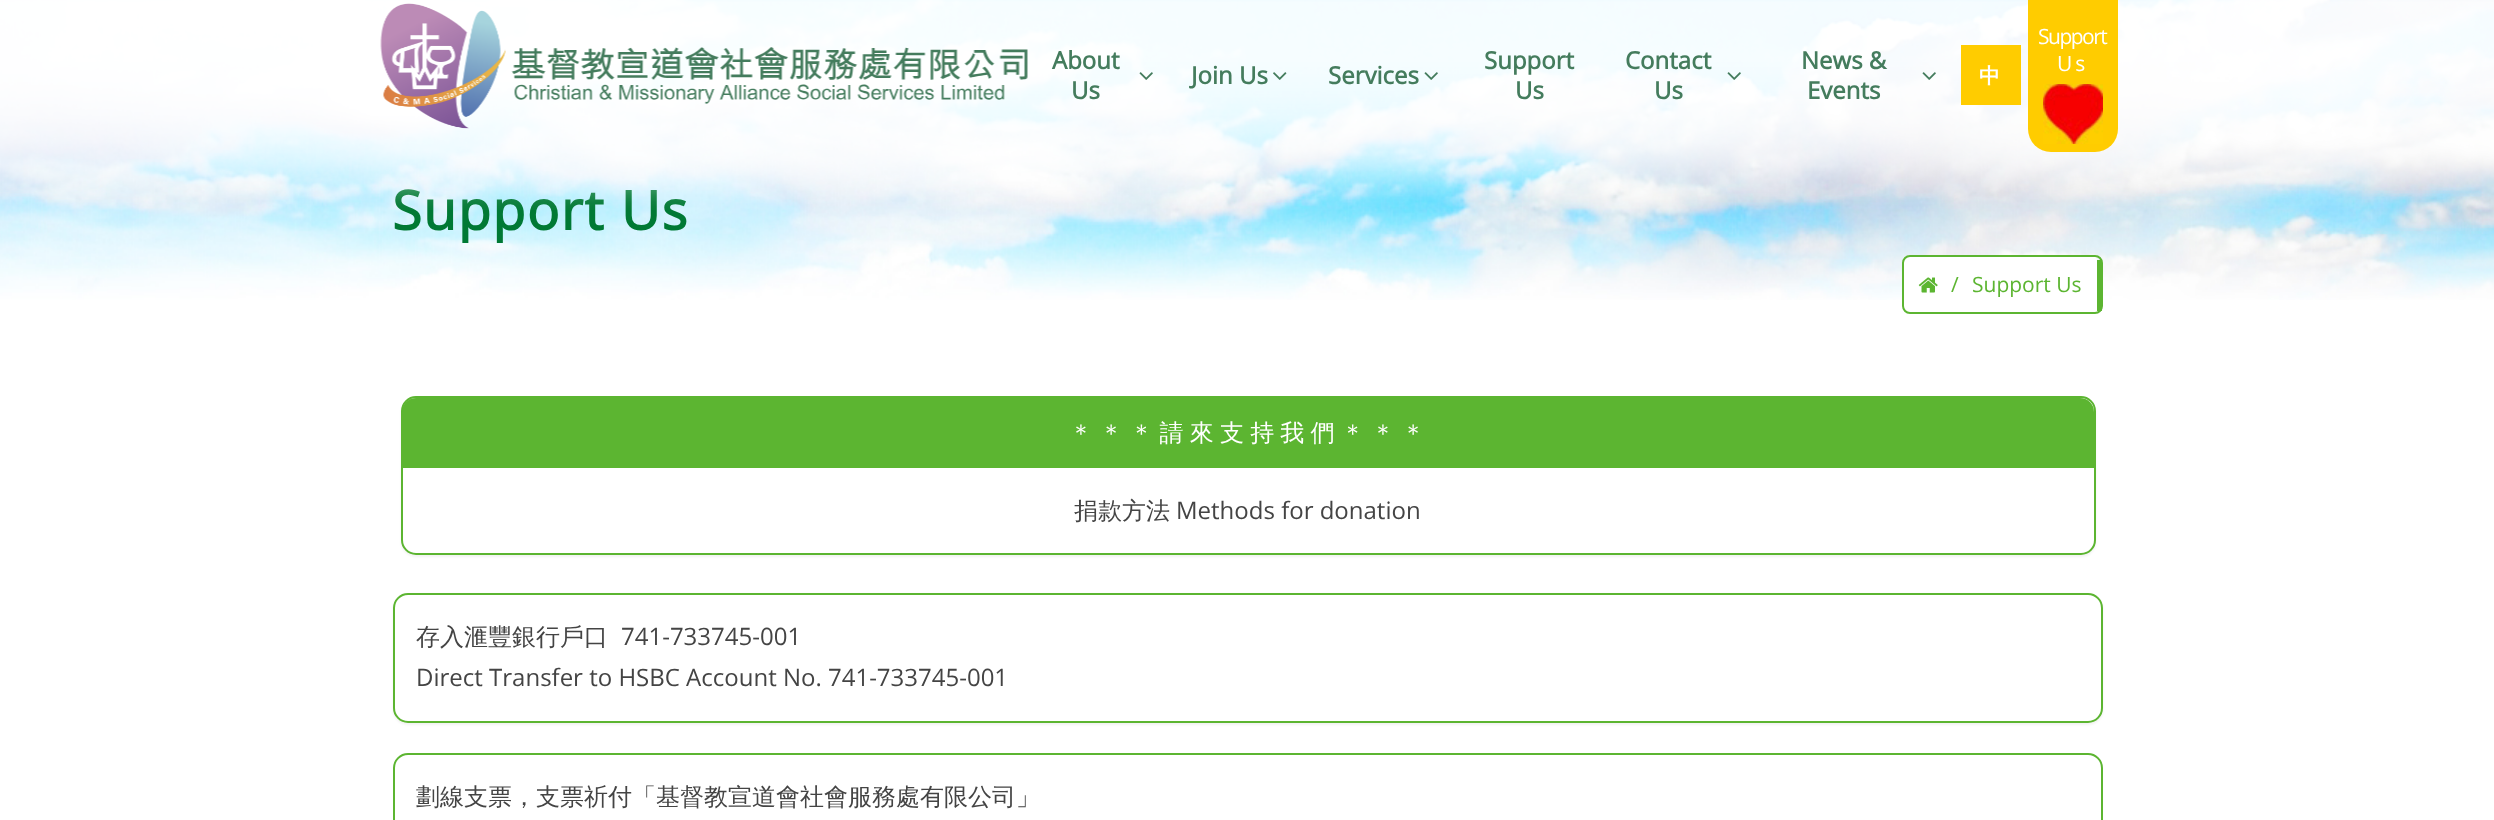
<!DOCTYPE html>
<meta charset="utf-8">
<style>body { margin: 0 } canvas { display: block }</style>
<canvas id="canvas" width="2494" height="820"></canvas>
<img id="img1" src="images/9.png" hidden>
<img id="img2" src="images/10.png" hidden>
<img id="img3" src="images/1.png" hidden>
<img id="img4" src="images/7.png" hidden>
<img id="img5" src="images/6.png" hidden>
<img id="img6" src="images/5.png" hidden>
<img id="img7" src="images/4.png" hidden>
<img id="img8" src="images/3.png" hidden>
<img id="img9" src="images/8.png" hidden>
<img id="img10" src="images/2.png" hidden>
<script>
window.onload = function () {
    const canvas = document.getElementById('canvas');
    const context = canvas.getContext('2d');
    context.miterLimit = 4;
    context.fontKerning = 'normal';

    context.fillStyle = 'rgb(255, 255, 255)';
    context.fillRect(0, 0, 2494, 820);
    context.drawImage(document.getElementById('img1'), 0, 0, 2494, 300);
    context.beginPath();
    context.moveTo(1910, 256);
    context.lineTo(2096, 256);
    context.bezierCurveTo(2096, 256, 2097, 259, 2097, 262);
    context.lineTo(2097, 306);
    context.bezierCurveTo(2097, 309, 2096, 312, 2096, 312);
    context.lineTo(1910, 312);
    context.bezierCurveTo(1906, 312, 1904, 309, 1904, 306);
    context.lineTo(1904, 262);
    context.bezierCurveTo(1904, 259, 1906, 256, 1910, 256);
    context.closePath();
    context.fill();
    context.beginPath();
    context.roundRect(1903, 256, 199, 57, 7);
    context.strokeStyle = 'rgb(92, 181, 49)';
    context.lineWidth = 2;
    context.stroke();
    context.fillStyle = 'rgb(92, 181, 49)';
    context.fillRect(2097, 260, 5, 51);
    context.drawImage(document.getElementById('img2'), 1918, 277, 20, 16);
    context.fillStyle = 'rgba(0, 0, 0, 0.05)';
    context.filter = 'blur(1px)';
    context.beginPath();
    context.roundRect(401, 398, 1695, 159, 15);
    context.fill();
    context.filter = 'none';
    context.fillStyle = 'rgb(255, 255, 255)';
    context.beginPath();
    context.roundRect(402, 397, 1693, 157, 14);
    context.fill();
    context.stroke();
    context.fillStyle = 'rgb(92, 181, 49)';
    context.beginPath();
    context.roundRect(402, 398, 1692, 70, [14, 14, 0, 0]);
    context.fill();
    context.fillStyle = 'rgba(0, 0, 0, 0.05)';
    context.filter = 'blur(1px)';
    context.beginPath();
    context.roundRect(393, 594, 1710, 131, 15);
    context.fill();
    context.filter = 'none';
    context.fillStyle = 'rgb(255, 255, 255)';
    context.beginPath();
    context.roundRect(394, 594, 1708, 128, 14);
    context.fill();
    context.stroke();
    context.beginPath();
    context.roundRect(394, 754, 1708, 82, 14);
    context.stroke();
    context.letterSpacing = '1.5px';
    context.font = 'bold 54px Open Sans';
    context.fillStyle = 'rgb(0, 121, 52)';
    context.fillText('Support Us', 392, 230);
    context.drawImage(document.getElementById('img3'), 0, 0, 2494, 210);
    context.drawImage(document.getElementById('img4'), 1922, 72, 14, 8);
    context.letterSpacing = '0px';
    context.font = 'bold 24px Open Sans';
    context.fillStyle = 'rgb(68, 124, 93)';
    context.fillText('Events', 1807, 99);
    context.fillText('News &', 1801, 69);
    context.drawImage(document.getElementById('img5'), 1727, 72, 14, 8);
    context.fillText('Us', 1654, 99);
    context.fillText('Contact', 1625, 69);
    context.fillText('Us', 1515, 99);
    context.fillText('Support', 1484, 69);
    context.drawImage(document.getElementById('img6'), 1424, 72, 14, 8);
    context.fillText('Services', 1328, 84);
    context.drawImage(document.getElementById('img7'), 1273, 72, 14, 8);
    context.fillText('Join Us', 1191, 84);
    context.drawImage(document.getElementById('img8'), 1139, 72, 14, 8);
    context.fillText('Us', 1071, 99);
    context.fillText('About', 1052, 69);
    context.fillStyle = 'rgb(255, 204, 0)';
    context.fillRect(1961, 45, 60, 60);
    context.font = 'bold 21px WenQuanYi Zen Hei';
    context.fillStyle = 'rgb(255, 255, 255)';
    context.fillText('中', 1979, 83);
    context.fillStyle = 'rgb(255, 204, 0)';
    context.beginPath();
    context.roundRect(2028, 0, 90, 152, [0, 0, 23, 23]);
    context.fill();
    context.drawImage(document.getElementById('img9'), 2043, 84, 60, 60);
    context.letterSpacing = '3px';
    context.font = '21px Open Sans';
    context.fillStyle = 'rgb(255, 255, 255)';
    context.fillText('Us', 2057, 71);
    context.letterSpacing = '-1.5px';
    context.fillText('Support', 2038, 44);
    context.drawImage(document.getElementById('img10'), 380, 3, 648, 126);
    context.letterSpacing = '0px';
    context.fillStyle = 'rgb(92, 181, 49)';
    context.fillText('/', 1951, 292);
    context.fillText('Support Us', 1972, 292);
    context.wordSpacing = '-1px';
    context.font = '500 24px WenQuanYi Zen Hei';
    context.fillStyle = 'rgb(255, 255, 255)';
    context.fillText('＊ ＊ ＊ 請 來 支 持 我 們 ＊ ＊ ＊', 1069, 441);
    context.wordSpacing = '0px';
    context.fillStyle = 'rgb(68, 68, 68)';
    context.fillText('捐款方法', 1074, 519);
    context.font = '24px Open Sans';
    context.fillText('Methods for donation', 1176, 519);
    context.font = '500 24px WenQuanYi Zen Hei';
    context.fillText('存入滙豐銀行戶口', 416, 645);
    context.font = '24px Open Sans';
    context.fillText('741-733745-001', 621, 645);
    context.fillText('Direct Transfer to HSBC Account No. 741-733745-001', 416, 686);
    context.font = '500 24px WenQuanYi Zen Hei';
    context.fillText('劃線支票，支票祈付「基督教宣道會社會服務處有限公司」', 416, 805);
};
</script>
